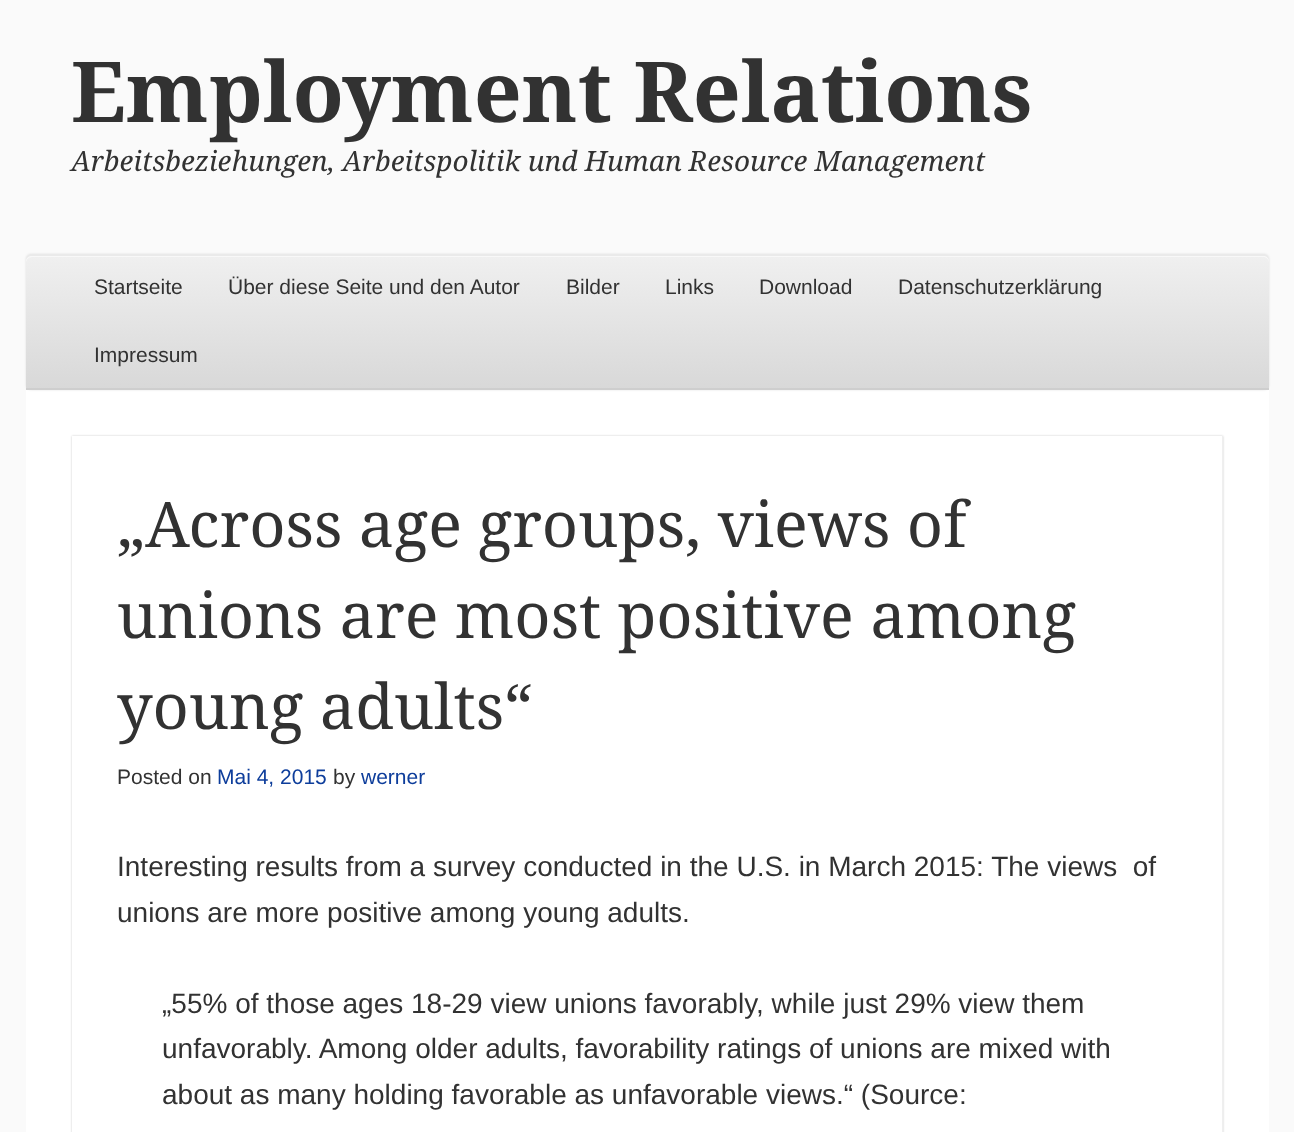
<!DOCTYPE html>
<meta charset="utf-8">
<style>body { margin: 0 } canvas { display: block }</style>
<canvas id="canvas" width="1294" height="1132"></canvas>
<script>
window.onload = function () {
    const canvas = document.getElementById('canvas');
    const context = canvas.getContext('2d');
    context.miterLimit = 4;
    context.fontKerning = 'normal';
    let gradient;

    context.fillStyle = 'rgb(250, 250, 250)';
    context.fillRect(0, 0, 1294, 1132);
    context.fillStyle = 'rgb(255, 255, 255)';
    context.beginPath();
    context.moveTo(31, 254);
    context.lineTo(1264, 254);
    context.bezierCurveTo(1267, 254, 1269, 256, 1269, 259);
    context.lineTo(1269, 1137);
    context.lineTo(26, 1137);
    context.lineTo(26, 259);
    context.bezierCurveTo(26, 256, 28, 254, 31, 254);
    context.closePath();
    context.fill();
    context.fillStyle = 'rgba(0, 0, 0, 0.1)';
    context.filter = 'blur(1px)';
    context.beginPath();
    context.roundRect(26, 254, 1243, 136, 5);
    context.fill();
    context.filter = 'none';
    context.fillStyle = 'rgb(240, 240, 240)';
    context.beginPath();
    context.roundRect(26, 254, 1243, 136, [5, 5, 0, 0]);
    context.fill();
    gradient = context.createLinearGradient(648, 254, 648, 390);
    gradient.addColorStop(0, 'rgba(240, 240, 240, 0.8)');
    gradient.addColorStop(1, 'rgba(210, 210, 210, 0.8)');
    context.fillStyle = gradient;
    context.beginPath();
    context.roundRect(26, 254, 1243, 136, [5, 5, 0, 0]);
    context.fill();
    context.fillStyle = 'rgb(206, 206, 206)';
    context.fillRect(26, 388, 1243, 2);
    context.fillStyle = 'rgb(248, 248, 248)';
    context.beginPath();
    context.moveTo(32, 257);
    context.lineTo(1264, 257);
    context.bezierCurveTo(1266, 257, 1269, 260, 1269, 262);
    context.lineTo(1269, 259);
    context.bezierCurveTo(1269, 256, 1267, 254, 1264, 254);
    context.lineTo(31, 254);
    context.bezierCurveTo(28, 254, 26, 256, 26, 259);
    context.lineTo(26, 262);
    context.bezierCurveTo(26, 260, 29, 257, 32, 257);
    context.closePath();
    context.fill();
    context.fillStyle = 'rgb(234, 234, 234)';
    context.beginPath();
    context.moveTo(32, 256);
    context.lineTo(1264, 256);
    context.bezierCurveTo(1266, 256, 1269, 258, 1269, 261);
    context.lineTo(1269, 259);
    context.bezierCurveTo(1269, 256, 1267, 254, 1264, 254);
    context.lineTo(31, 254);
    context.bezierCurveTo(28, 254, 26, 256, 26, 259);
    context.lineTo(26, 261);
    context.bezierCurveTo(26, 258, 29, 256, 32, 256);
    context.closePath();
    context.fill();
    context.save();
    context.beginPath();
    context.moveTo(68, 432);
    context.lineTo(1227, 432);
    context.lineTo(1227, 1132);
    context.lineTo(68, 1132);
    context.closePath();
    context.moveTo(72, 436);
    context.lineTo(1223, 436);
    context.lineTo(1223, 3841);
    context.lineTo(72, 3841);
    context.closePath();
    context.clip('evenodd');
    context.fillStyle = 'rgba(0, 0, 0, 0.2)';
    context.filter = 'blur(1px)';
    context.beginPath();
    context.rect(72, 436, 1151, 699);
    context.fill();
    context.filter = 'none';
    context.restore();
    context.save();
    context.beginPath();
    context.rect(72, 436, 1151, 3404);
    context.clip();
    context.fillStyle = 'rgb(239, 239, 239)';
    context.beginPath();
    context.moveTo(-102, 262);
    context.lineTo(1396, 262);
    context.lineTo(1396, 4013);
    context.lineTo(-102, 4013);
    context.closePath();
    context.moveTo(70, 434);
    context.lineTo(1222, 434);
    context.lineTo(1222, 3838);
    context.lineTo(70, 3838);
    context.closePath();
    context.fill('evenodd');
    context.restore();
    context.font = 'bold 84px Droid Serif';
    context.fillStyle = 'rgb(50, 50, 50)';
    context.fillText('Employment Relations', 71, 122);
    context.font = 'italic 28px Droid Serif';
    context.fillText('Arbeitsbeziehungen, Arbeitspolitik und Human Resource Management', 71, 171);
    context.font = '21px Liberation Sans';
    context.fillText('Startseite', 94, 294);
    context.fillText('Über diese Seite und den Autor', 228, 294);
    context.fillText('Bilder', 566, 294);
    context.fillText('Links', 665, 294);
    context.fillText('Download', 759, 294);
    context.fillText('Datenschutzerklärung', 898, 294);
    context.fillText('Impressum', 94, 362);
    context.font = '63px Droid Serif';
    context.fillText('„Across age groups, views of', 117, 547);
    context.fillText('unions are most positive among', 117, 638);
    context.fillText('young adults“', 117, 729);
    context.font = '21px Liberation Sans';
    context.fillText('Posted on', 117, 784);
    context.fillStyle = 'rgb(13, 61, 155)';
    context.fillText('Mai 4, 2015', 217, 784);
    context.fillStyle = 'rgb(50, 50, 50)';
    context.fillText('by', 333, 784);
    context.fillStyle = 'rgb(13, 61, 155)';
    context.fillText('werner', 361, 784);
    context.font = '28px Liberation Sans';
    context.fillStyle = 'rgb(50, 50, 50)';
    context.fillText('Interesting results from a survey conducted in the U.S. in March 2015: The views  of', 117, 876);
    context.fillText('unions are more positive among young adults.', 117, 922);
    context.fillText('„55% of those ages 18-29 view unions favorably, while just 29% view them', 162, 1013);
    context.fillText('unfavorably. Among older adults, favorability ratings of unions are mixed with', 162, 1058);
    context.fillText('about as many holding favorable as unfavorable views.“ (Source:', 162, 1104);
};
</script>
